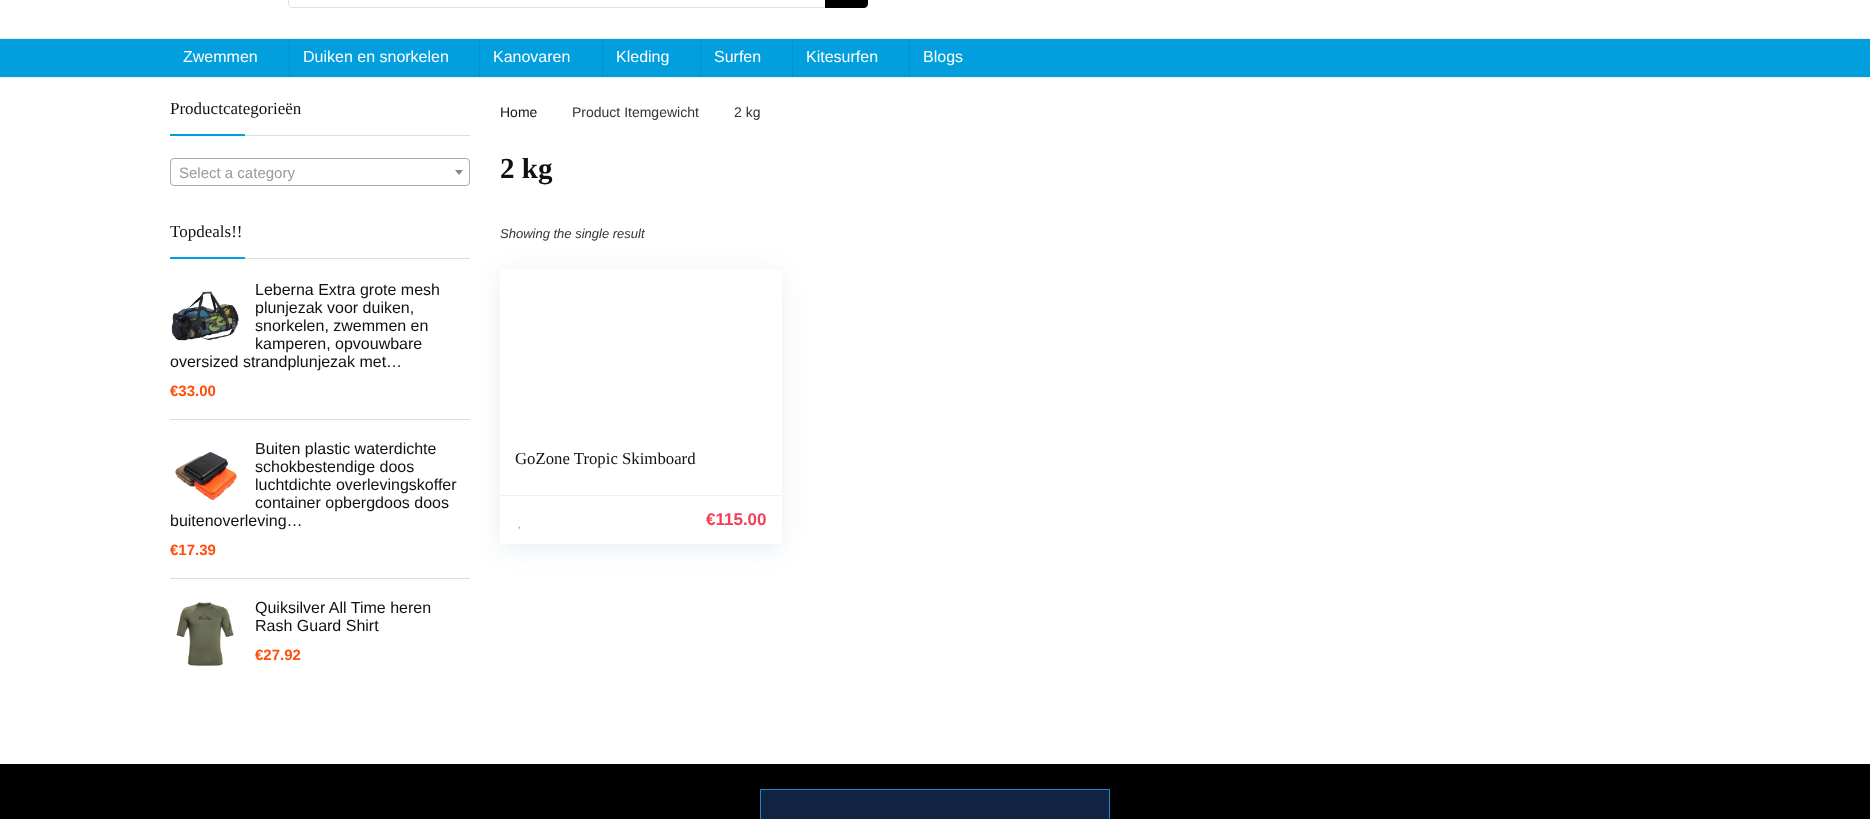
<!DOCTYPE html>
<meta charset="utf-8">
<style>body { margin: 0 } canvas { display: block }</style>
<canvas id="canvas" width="1870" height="819"></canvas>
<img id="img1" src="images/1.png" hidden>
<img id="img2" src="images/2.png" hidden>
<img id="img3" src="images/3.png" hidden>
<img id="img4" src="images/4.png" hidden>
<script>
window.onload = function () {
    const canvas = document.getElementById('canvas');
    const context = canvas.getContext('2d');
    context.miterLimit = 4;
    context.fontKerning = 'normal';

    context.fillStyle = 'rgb(255, 255, 255)';
    context.fillRect(0, 0, 1870, 819);
    context.fillStyle = 'rgb(225, 225, 225)';
    context.beginPath();
    context.moveTo(292, -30);
    context.lineTo(825, -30);
    context.lineTo(825, 8);
    context.lineTo(292, 8);
    context.bezierCurveTo(290, 8, 288, 6, 288, 4);
    context.lineTo(288, -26);
    context.bezierCurveTo(288, -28, 290, -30, 292, -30);
    context.closePath();
    context.moveTo(292, -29);
    context.lineTo(825, -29);
    context.lineTo(825, 7);
    context.lineTo(292, 7);
    context.bezierCurveTo(290, 7, 289, 6, 289, 4);
    context.lineTo(289, -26);
    context.bezierCurveTo(289, -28, 290, -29, 292, -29);
    context.closePath();
    context.fill('evenodd');
    context.fillStyle = 'rgb(0, 0, 0)';
    context.beginPath();
    context.moveTo(825, -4);
    context.lineTo(864, -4);
    context.bezierCurveTo(866, -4, 868, -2, 868, 0);
    context.lineTo(868, 4);
    context.bezierCurveTo(868, 6, 866, 8, 864, 8);
    context.lineTo(825, 8);
    context.closePath();
    context.fill();
    context.fillStyle = 'rgb(1, 159, 222)';
    context.fillRect(0, 39, 1870, 38);
    context.fillStyle = 'rgb(238, 238, 238)';
    context.fillRect(0, 38, 1870, 1);
    context.fillRect(0, 77, 1870, 1);
    context.fillStyle = 'rgb(1, 146, 204)';
    context.fillRect(289, 39, 1, 38);
    context.fillRect(479, 39, 1, 38);
    context.fillRect(602, 39, 1, 38);
    context.fillRect(700, 39, 1, 38);
    context.fillRect(792, 39, 1, 38);
    context.fillRect(909, 39, 1, 38);
    context.fillStyle = 'rgb(221, 221, 221)';
    context.fillRect(245, 135, 225, 1);
    context.fillStyle = 'rgb(1, 159, 222)';
    context.fillRect(170, 134, 75, 2);
    context.beginPath();
    context.roundRect(170.5, 158.5, 299, 27, 3.5);
    context.strokeStyle = 'rgb(170, 170, 170)';
    context.stroke();
    context.fillStyle = 'rgb(136, 136, 136)';
    context.beginPath();
    context.moveTo(455, 170);
    context.lineTo(463, 170);
    context.lineTo(459, 175);
    context.closePath();
    context.fill();
    context.fillStyle = 'rgb(221, 221, 221)';
    context.fillRect(245, 258, 225, 1);
    context.fillStyle = 'rgb(1, 159, 222)';
    context.fillRect(170, 257, 75, 2);
    context.fillStyle = 'rgb(221, 221, 221)';
    context.fillRect(170, 419, 300, 1);
    context.drawImage(document.getElementById('img1'), 171, 291, 68, 50);
    context.fillRect(170, 578, 300, 1);
    context.drawImage(document.getElementById('img2'), 175, 452, 62, 48);
    context.drawImage(document.getElementById('img3'), 176, 602, 58, 64);
    context.save();
    context.beginPath();
    context.moveTo(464, 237);
    context.lineTo(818, 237);
    context.lineTo(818, 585);
    context.lineTo(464, 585);
    context.closePath();
    context.moveTo(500, 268);
    context.lineTo(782, 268);
    context.lineTo(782, 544);
    context.lineTo(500, 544);
    context.closePath();
    context.clip('evenodd');
    context.fillStyle = 'rgba(188, 207, 219, 0.35)';
    context.filter = 'blur(11.5px)';
    context.beginPath();
    context.rect(500, 273, 282, 276);
    context.fill();
    context.filter = 'none';
    context.restore();
    context.fillStyle = 'rgb(248, 248, 248)';
    context.fillRect(500, 268, 282, 1);
    context.fillStyle = 'rgb(240, 240, 240)';
    context.fillRect(500, 495, 282, 1);
    context.drawImage(document.getElementById('img4'), 518, 526, 3, 4);
    context.fillStyle = 'rgb(0, 0, 0)';
    context.fillRect(0, 764, 1870, 55);
    context.fillStyle = 'rgb(16, 35, 65)';
    context.beginPath();
    context.rect(760.5, 789.5, 349, 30);
    context.fill();
    context.strokeStyle = 'rgb(44, 130, 201)';
    context.stroke();
    context.font = '16px Liberation Sans';
    context.fillStyle = 'rgb(255, 255, 255)';
    context.fillText('Zwemmen', 183, 62);
    context.fillText('Duiken en snorkelen', 303, 62);
    context.fillText('Kanovaren', 493, 62);
    context.fillText('Kleding', 616, 62);
    context.fillText('Surfen', 714, 62);
    context.fillText('Kitesurfen', 806, 62);
    context.fillText('Blogs', 923, 62);
    context.font = '17px Liberation Serif';
    context.fillStyle = 'rgb(17, 17, 17)';
    context.fillText('Productcategorieën', 170, 114);
    context.font = '15px Liberation Sans';
    context.fillStyle = 'rgb(153, 153, 153)';
    context.fillText('Select a category', 179, 178);
    context.font = '17px Liberation Serif';
    context.fillStyle = 'rgb(17, 17, 17)';
    context.fillText('Topdeals!!', 170, 237);
    context.font = '16px Liberation Sans';
    context.fillText('Leberna Extra grote mesh', 255, 295);
    context.fillText('plunjezak voor duiken,', 255, 313);
    context.fillText('snorkelen, zwemmen en', 255, 331);
    context.fillText('kamperen, opvouwbare', 255, 349);
    context.fillText('oversized strandplunjezak met…', 170, 367);
    context.font = 'bold 15px Liberation Sans';
    context.fillStyle = 'rgb(255, 78, 12)';
    context.fillText('€33.00', 170, 396);
    context.font = '16px Liberation Sans';
    context.fillStyle = 'rgb(17, 17, 17)';
    context.fillText('Buiten plastic waterdichte', 255, 454);
    context.fillText('schokbestendige doos', 255, 472);
    context.fillText('luchtdichte overlevingskoffer', 255, 490);
    context.fillText('container opbergdoos doos', 255, 508);
    context.fillText('buitenoverleving…', 170, 526);
    context.font = 'bold 15px Liberation Sans';
    context.fillStyle = 'rgb(255, 78, 12)';
    context.fillText('€17.39', 170, 555);
    context.font = '16px Liberation Sans';
    context.fillStyle = 'rgb(17, 17, 17)';
    context.fillText('Quiksilver All Time heren', 255, 613);
    context.fillText('Rash Guard Shirt', 255, 631);
    context.font = 'bold 15px Liberation Sans';
    context.fillStyle = 'rgb(255, 78, 12)';
    context.fillText('€27.92', 255, 660);
    context.font = '14px Liberation Sans';
    context.fillStyle = 'rgb(17, 17, 17)';
    context.fillText('Home', 500, 117);
    context.fillStyle = 'rgb(51, 51, 51)';
    context.fillText('Product Itemgewicht', 572, 117);
    context.fillText('2 kg', 734, 117);
    context.font = 'bold 29px Liberation Serif';
    context.fillStyle = 'rgb(17, 17, 17)';
    context.fillText('2 kg', 500, 178);
    context.font = 'italic 13px Liberation Sans';
    context.fillStyle = 'rgb(51, 51, 51)';
    context.fillText('Showing the single result', 500, 238);
    context.font = '16.75px Liberation Serif';
    context.fillStyle = 'rgb(17, 17, 17)';
    context.fillText('GoZone Tropic Skimboard', 515, 464);
    context.font = 'bold 17px Liberation Sans';
    context.fillStyle = 'rgb(240, 64, 87)';
    context.fillText('€115.00', 706, 525);
};
</script>
